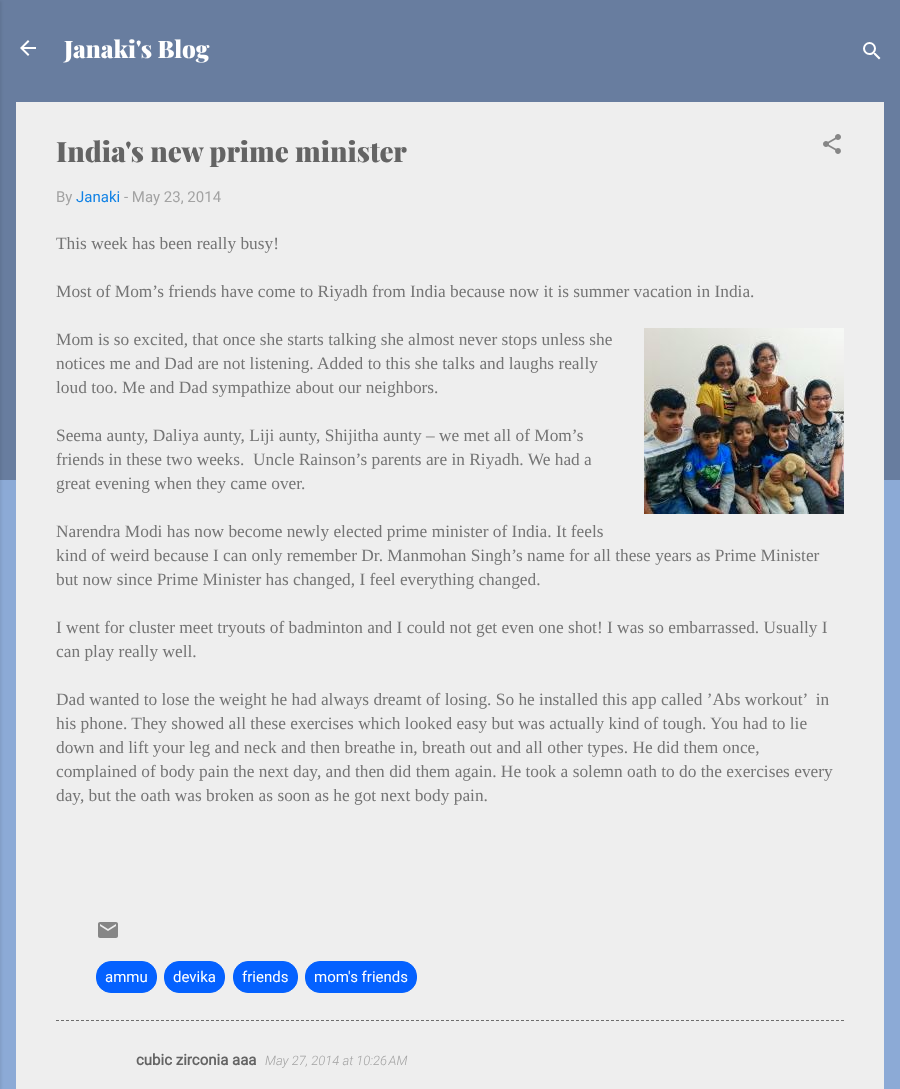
<!DOCTYPE html>
<meta charset="utf-8">
<style>body { margin: 0 } canvas { display: block }</style>
<canvas id="canvas" width="900" height="1089"></canvas>
<img id="img1" src="images/1.png" hidden>
<img id="img2" src="images/2.png" hidden>
<img id="img3" src="images/3.png" hidden>
<img id="img4" src="images/4.png" hidden>
<img id="img5" src="images/5.png" hidden>
<script>
window.onload = function () {
    const canvas = document.getElementById('canvas');
    const context = canvas.getContext('2d');
    context.miterLimit = 4;
    context.fontKerning = 'normal';

    context.fillStyle = 'rgb(140, 170, 214)';
    context.fillRect(0, 0, 900, 1089);
    context.fillStyle = 'rgb(104, 125, 159)';
    context.fillRect(0, 0, 900, 480);
    context.fillStyle = 'rgba(0, 0, 0, 0.1)';
    context.filter = 'blur(1.5px)';
    context.beginPath();
    context.rect(-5, 1, 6, 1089);
    context.fill();
    context.filter = 'none';
    context.drawImage(document.getElementById('img1'), 20, 40, 16, 16);
    context.drawImage(document.getElementById('img2'), 863, 42, 18, 18);
    context.fillStyle = 'rgb(238, 238, 238)';
    context.fillRect(16, 102, 868, 987);
    context.drawImage(document.getElementById('img3'), 823, 134, 18, 20);
    context.drawImage(document.getElementById('img4'), 644, 328, 200, 186);
    context.drawImage(document.getElementById('img5'), 98, 922, 20, 16);
    context.fillStyle = 'rgb(4, 97, 255)';
    context.beginPath();
    context.roundRect(96.5, 961.5, 60, 31, 14.5);
    context.fill();
    context.strokeStyle = 'rgb(4, 97, 255)';
    context.stroke();
    context.beginPath();
    context.roundRect(164.5, 961.5, 60, 31, 14.5);
    context.fill();
    context.stroke();
    context.beginPath();
    context.roundRect(233.5, 961.5, 64, 31, 14.5);
    context.fill();
    context.stroke();
    context.beginPath();
    context.roundRect(305.5, 961.5, 111, 31, 14.5);
    context.fill();
    context.stroke();
    context.beginPath();
    context.moveTo(56, 1020.5);
    context.lineTo(844, 1020.5);
    context.strokeStyle = 'rgb(109, 109, 109)';
    context.setLineDash([3, 2]);
    context.stroke();
    context.font = '900 24px Playfair Display';
    context.fillStyle = 'rgb(255, 255, 255)';
    context.fillText('Janaki\'s Blog', 64, 58);
    context.font = '900 28px Playfair Display';
    context.fillStyle = 'rgb(100, 100, 100)';
    context.fillText('India\'s new prime minister', 56, 162);
    context.font = '15px Roboto';
    context.fillStyle = 'rgb(163, 163, 163)';
    context.fillText('By', 56, 202);
    context.fillStyle = 'rgb(17, 130, 229)';
    context.fillText('Janaki', 76, 202);
    context.fillStyle = 'rgb(163, 163, 163)';
    context.fillText('- May 23, 2014', 124, 202);
    context.font = '17.35px Liberation Serif';
    context.fillStyle = 'rgb(117, 117, 117)';
    context.fillText('This week has been really busy!', 56, 249);
    context.fillText('Most of Mom’s friends have come to Riyadh from India because now it is summer vacation in India.', 56, 297);
    context.fillText('Mom is so excited, that once she starts talking she almost never stops unless she', 56, 345);
    context.fillText('notices me and Dad are not listening. Added to this she talks and laughs really', 56, 369);
    context.fillText('loud too. Me and Dad sympathize about our neighbors.', 56, 393);
    context.fillText('Seema aunty, Daliya aunty, Liji aunty, Shijitha aunty – we met all of Mom’s', 56, 441);
    context.fillText('friends in these two weeks.  Uncle Rainson’s parents are in Riyadh. We had a', 56, 465);
    context.fillText('great evening when they came over.', 56, 489);
    context.fillText('Narendra Modi has now become newly elected prime minister of India. It feels', 56, 537);
    context.fillText('kind of weird because I can only remember Dr. Manmohan Singh’s name for all these years as Prime Minister', 56, 561);
    context.fillText('but now since Prime Minister has changed, I feel everything changed.', 56, 585);
    context.fillText('I went for cluster meet tryouts of badminton and I could not get even one shot! I was so embarrassed. Usually I', 56, 633);
    context.fillText('can play really well.', 56, 657);
    context.fillText('Dad wanted to lose the weight he had always dreamt of losing. So he installed this app called ’Abs workout’  in', 56, 705);
    context.fillText('his phone. They showed all these exercises which looked easy but was actually kind of tough. You had to lie', 56, 729);
    context.fillText('down and lift your leg and neck and then breathe in, breath out and all other types. He did them once,', 56, 753);
    context.fillText('complained of body pain the next day, and then did them again. He took a solemn oath to do the exercises every', 56, 777);
    context.fillText('day, but the oath was broken as soon as he got next body pain.', 56, 801);
    context.font = '15px Roboto';
    context.fillStyle = 'rgb(255, 255, 255)';
    context.fillText('ammu', 105, 982);
    context.fillText('devika', 173, 982);
    context.fillText('friends', 242, 982);
    context.fillText('mom\'s friends', 314, 982);
    context.font = 'bold 15px Roboto';
    context.fillStyle = 'rgb(100, 100, 100)';
    context.fillText('cubic zirconia aaa', 136, 1065);
    context.font = 'italic 300 13px Roboto';
    context.fillStyle = 'rgb(163, 163, 163)';
    context.fillText('May 27, 2014 at 10:26 AM', 265, 1065);
};
</script>
